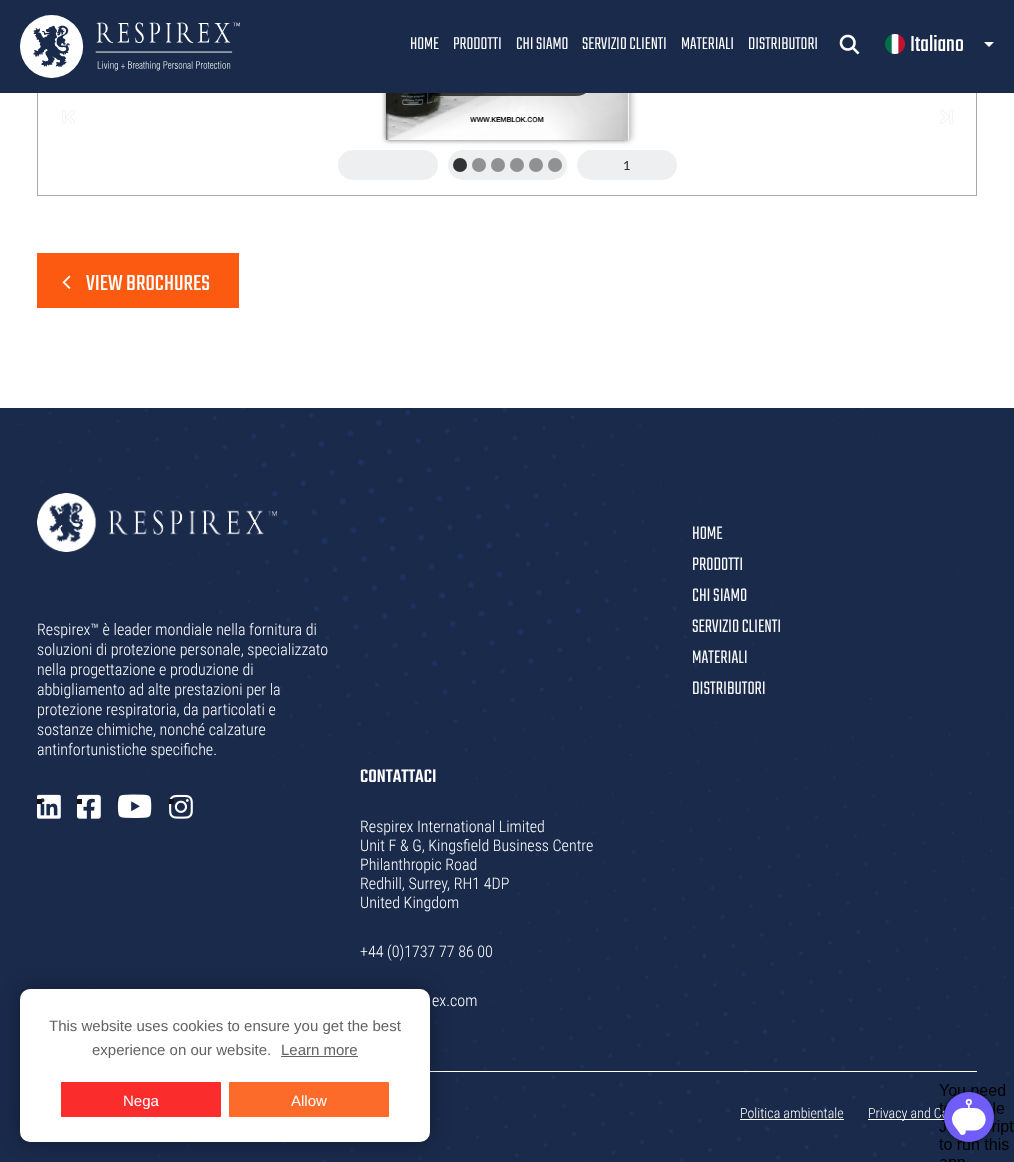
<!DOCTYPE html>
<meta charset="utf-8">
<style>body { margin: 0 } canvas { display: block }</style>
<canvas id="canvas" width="1014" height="1162"></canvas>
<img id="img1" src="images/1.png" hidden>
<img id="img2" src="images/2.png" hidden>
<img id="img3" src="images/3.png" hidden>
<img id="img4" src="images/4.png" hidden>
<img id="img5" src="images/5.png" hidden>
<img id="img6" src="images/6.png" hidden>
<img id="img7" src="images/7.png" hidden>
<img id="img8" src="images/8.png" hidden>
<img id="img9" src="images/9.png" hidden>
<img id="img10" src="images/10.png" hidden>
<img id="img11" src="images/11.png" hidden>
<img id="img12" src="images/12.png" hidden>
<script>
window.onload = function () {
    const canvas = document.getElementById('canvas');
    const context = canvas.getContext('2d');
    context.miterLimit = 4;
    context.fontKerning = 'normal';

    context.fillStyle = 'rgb(255, 255, 255)';
    context.fillRect(0, 0, 1014, 1162);
    context.strokeStyle = 'rgb(170, 170, 170)';
    context.strokeRect(37.5, -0.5, 939, 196);
    context.fillStyle = 'rgb(26, 42, 75)';
    context.fillRect(0, 0, 1014, 93);
    context.drawImage(document.getElementById('img1'), 20, 15, 220, 63);
    context.drawImage(document.getElementById('img2'), 839, 34, 21, 21);
    context.drawImage(document.getElementById('img3'), 885, 34, 20, 20);
    context.fillStyle = 'rgb(255, 255, 255)';
    context.beginPath();
    context.moveTo(984, 42);
    context.lineTo(994, 42);
    context.lineTo(989, 47);
    context.closePath();
    context.fill();
    context.drawImage(document.getElementById('img4'), 62, 93, 891, 87);
    context.fillStyle = 'rgb(252, 90, 17)';
    context.fillRect(37, 253, 202, 55);
    context.drawImage(document.getElementById('img5'), 62, 275, 9, 14);
    context.fillStyle = 'rgb(26, 42, 75)';
    context.fillRect(0, 408, 1014, 754);
    context.drawImage(document.getElementById('img6'), 11, 408, 1003, 754);
    context.drawImage(document.getElementById('img7'), 37, 493, 240, 59);
    context.drawImage(document.getElementById('img8'), 37, 794, 24, 25);
    context.fillStyle = 'rgb(17, 17, 17)';
    context.fillRect(37, 799, 5, 5);
    context.drawImage(document.getElementById('img9'), 77, 794, 24, 25);
    context.fillRect(77, 799, 5, 5);
    context.fillRect(117, 797, 5, 5);
    context.drawImage(document.getElementById('img10'), 117, 794, 35, 24);
    context.drawImage(document.getElementById('img11'), 169, 794, 24, 25);
    context.fillRect(169, 799, 5, 5);
    context.fillStyle = 'rgb(255, 255, 255)';
    context.fillRect(430, 1071, 547, 1);
    context.fillRect(740, 1119, 104, 1);
    context.fillRect(868, 1119, 77, 1);
    context.fillStyle = 'rgba(0, 0, 0, 0.3)';
    context.filter = 'blur(10px)';
    context.beginPath();
    context.roundRect(20, 989, 410, 153, 10);
    context.fill();
    context.filter = 'none';
    context.fillStyle = 'rgb(255, 255, 255)';
    context.beginPath();
    context.roundRect(20, 989, 410, 153, 10);
    context.fill();
    context.fillStyle = 'rgb(98, 98, 98)';
    context.fillRect(281, 1056, 77, 1);
    context.fillStyle = 'rgb(251, 44, 44)';
    context.beginPath();
    context.rect(61.5, 1082.5, 159, 34);
    context.fill();
    context.strokeStyle = 'rgb(251, 44, 44)';
    context.stroke();
    context.fillStyle = 'rgb(252, 107, 41)';
    context.beginPath();
    context.rect(229.5, 1082.5, 159, 34);
    context.fill();
    context.strokeStyle = 'rgb(252, 107, 41)';
    context.stroke();
    context.font = '300 19px Teko';
    context.fillStyle = 'rgb(255, 255, 255)';
    context.fillText('HOME', 410, 49);
    context.fillText('PRODOTTI', 453, 49);
    context.fillText('CHI SIAMO', 516, 49);
    context.fillText('SERVIZIO CLIENTI', 582, 49);
    context.fillText('MATERIALI', 681, 49);
    context.fillText('DISTRIBUTORI', 748, 49);
    context.font = '24px Teko';
    context.fillText('Italiano', 910, 51);
    context.fillText('VIEW BROCHURES', 86, 290);
    context.font = '300 16px Roboto Condensed';
    context.fillText('Respirex™ è leader mondiale nella fornitura di', 37, 635);
    context.fillText('soluzioni di protezione personale, specializzato', 37, 655);
    context.fillText('nella progettazione e produzione di', 37, 675);
    context.fillText('abbigliamento ad alte prestazioni per la', 37, 695);
    context.fillText('protezione respiratoria, da particolati e', 37, 715);
    context.fillText('sostanze chimiche, nonché calzature', 37, 735);
    context.fillText('antinfortunistiche specifiche.', 37, 755);
    context.font = '300 20px Teko';
    context.fillText('HOME', 692, 539);
    context.fillText('PRODOTTI', 692, 570);
    context.fillText('CHI SIAMO', 692, 601);
    context.fillText('SERVIZIO CLIENTI', 692, 632);
    context.fillText('MATERIALI', 692, 663);
    context.fillText('DISTRIBUTORI', 692, 694);
    context.font = '500 20px Teko';
    context.fillText('CONTATTACI', 360, 782);
    context.font = '300 16px Roboto Condensed';
    context.fillText('Respirex International Limited', 360, 832);
    context.fillText('Unit F & G, Kingsfield Business Centre', 360, 851);
    context.fillText('Philanthropic Road', 360, 870);
    context.fillText('Redhill, Surrey, RH1 4DP', 360, 889);
    context.fillText('United Kingdom', 360, 908);
    context.fillText('+44 (0)1737 77 86 00', 360, 957);
    context.fillText('ex.com', 432, 1006);
    context.font = '300 14px Roboto Condensed';
    context.fillText('Politica ambientale', 740, 1118);
    context.fillText('Privacy and Co', 868, 1118);
    context.font = '15px Liberation Sans';
    context.fillStyle = 'rgb(98, 98, 98)';
    context.fillText('This website uses cookies to ensure you get the best', 49, 1031);
    context.fillText('experience on our website.', 92, 1055);
    context.fillText('Learn more', 281, 1055);
    context.fillStyle = 'rgb(255, 255, 255)';
    context.fillText('Nega', 123, 1106);
    context.fillText('Allow', 291, 1106);
    context.drawImage(document.getElementById('img12'), 939, 1084, 75, 78);
};
</script>
